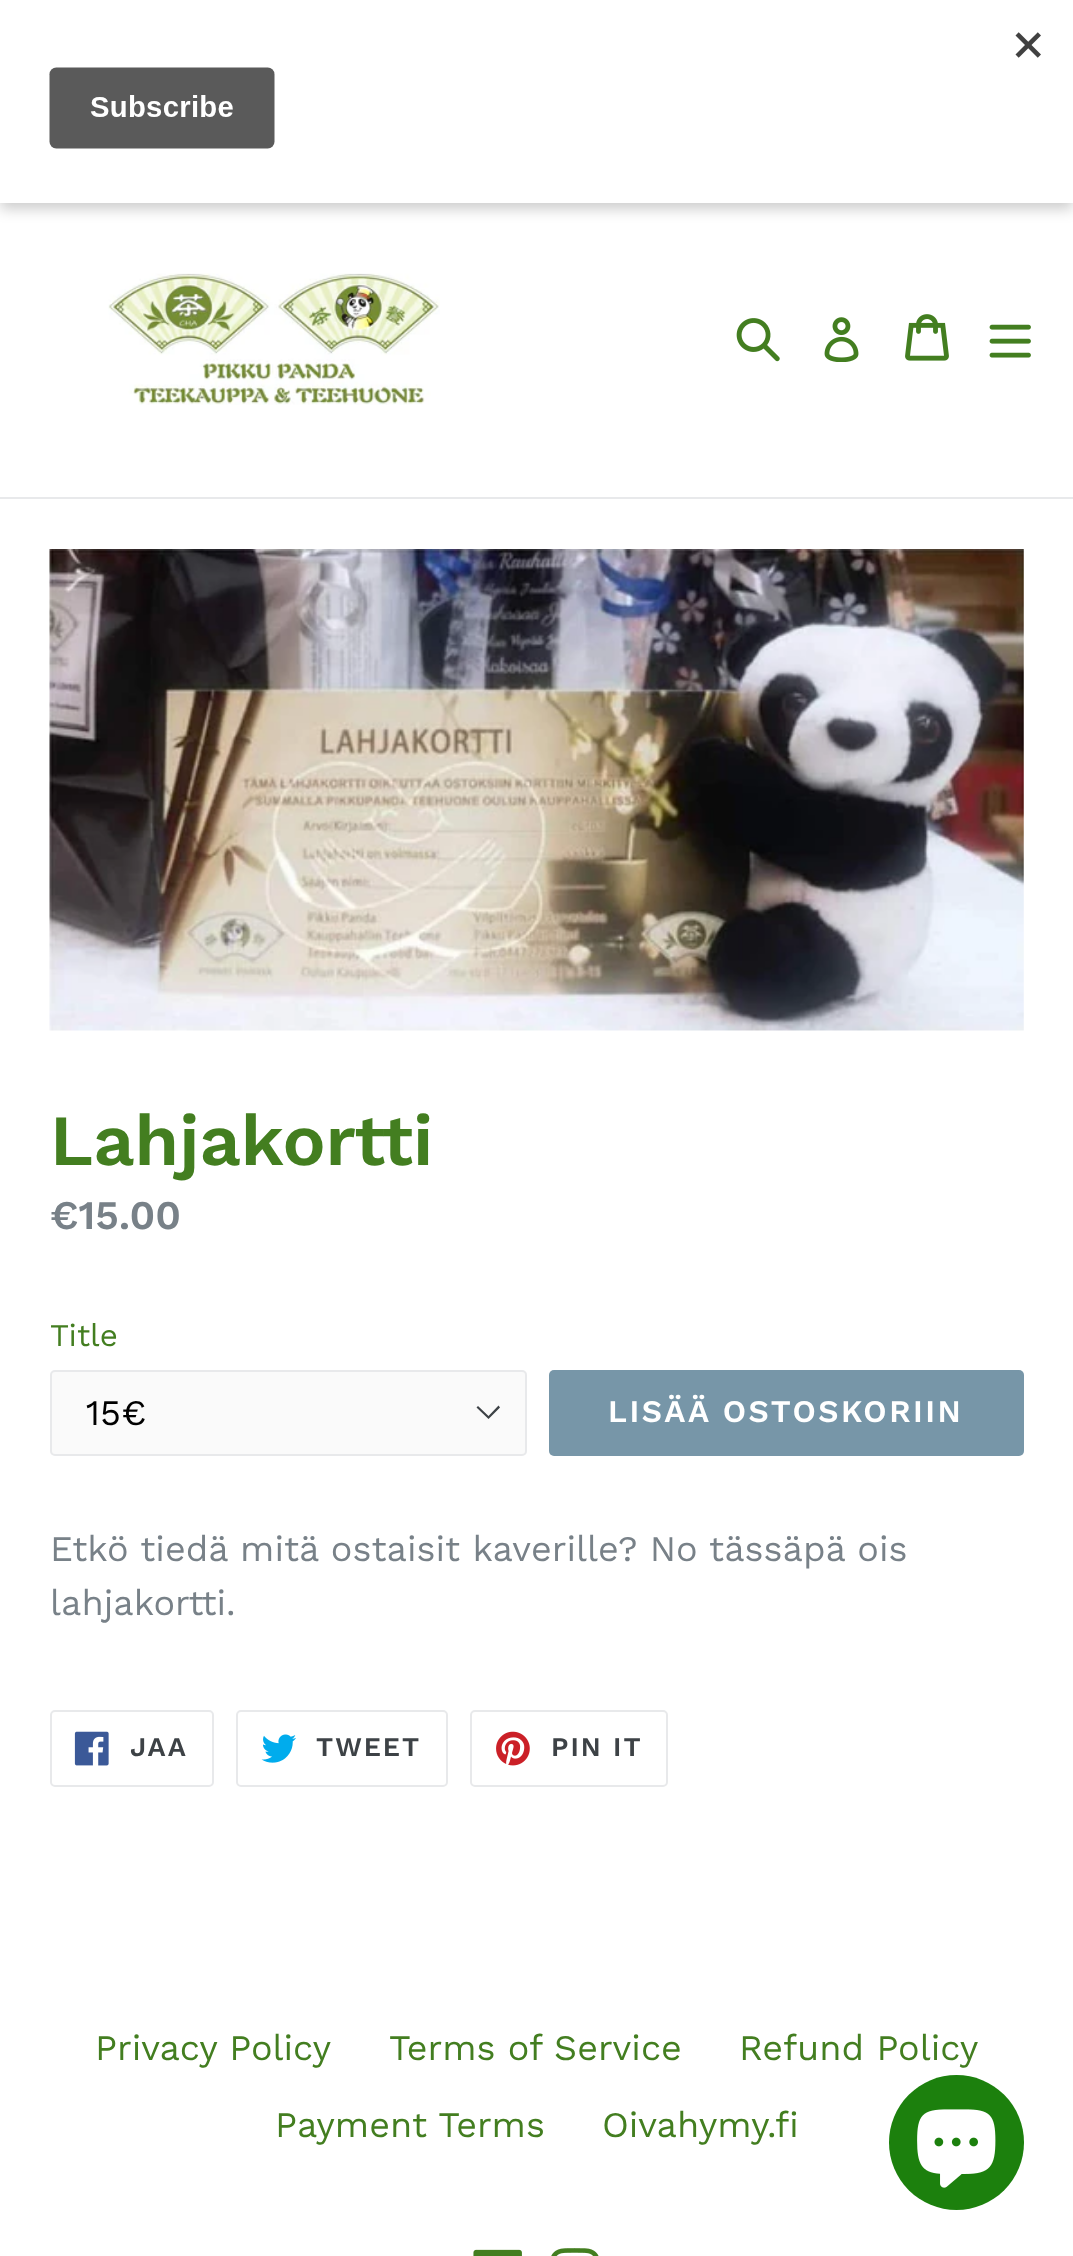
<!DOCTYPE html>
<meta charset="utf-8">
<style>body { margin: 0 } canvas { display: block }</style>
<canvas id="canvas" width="1073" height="2256"></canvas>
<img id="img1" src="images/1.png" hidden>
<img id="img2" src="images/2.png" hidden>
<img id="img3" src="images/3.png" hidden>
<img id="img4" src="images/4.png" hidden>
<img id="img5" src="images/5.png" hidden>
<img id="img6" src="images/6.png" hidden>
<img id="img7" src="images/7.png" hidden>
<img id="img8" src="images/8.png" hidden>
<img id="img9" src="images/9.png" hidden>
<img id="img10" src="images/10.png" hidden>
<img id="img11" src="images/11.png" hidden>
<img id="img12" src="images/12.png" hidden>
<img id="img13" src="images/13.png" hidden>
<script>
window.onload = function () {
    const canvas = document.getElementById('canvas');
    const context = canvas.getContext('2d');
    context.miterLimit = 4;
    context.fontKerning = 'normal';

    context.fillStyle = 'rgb(255, 255, 255)';
    context.fillRect(0, 0, 1073, 2256);
    context.fillStyle = 'rgba(0, 0, 0, 0.2)';
    context.filter = 'blur(7px)';
    context.beginPath();
    context.rect(0, 7, 1073, 202);
    context.fill();
    context.filter = 'none';
    context.fillStyle = 'rgb(255, 255, 255)';
    context.fillRect(0, 0, 1073, 203);
    context.drawImage(document.getElementById('img1'), 49, 32, 992, 117);
    context.fillStyle = 'rgb(232, 233, 235)';
    context.fillRect(0, 497, 1073, 2);
    context.drawImage(document.getElementById('img2'), 108, 273, 332, 132);
    context.drawImage(document.getElementById('img3'), 736, 318, 44, 44);
    context.drawImage(document.getElementById('img4'), 824, 317, 35, 45);
    context.drawImage(document.getElementById('img5'), 905, 314, 44, 47);
    context.drawImage(document.getElementById('img6'), 989, 324, 42, 34);
    context.drawImage(document.getElementById('img7'), 49, 549, 975, 482);
    context.fillStyle = 'rgb(250, 250, 250)';
    context.beginPath();
    context.roundRect(50, 1370, 477, 86, 5);
    context.fill();
    context.fillStyle = 'rgb(61, 66, 70)';
    context.beginPath();
    context.moveTo(488.5, 1419);
    context.lineTo(476.5, 1407.5);
    context.lineTo(478, 1406);
    context.lineTo(488.5, 1416);
    context.lineTo(498.5, 1405.5);
    context.lineTo(500, 1407.5);
    context.closePath();
    context.fill();
    context.beginPath();
    context.roundRect(51, 1371, 475, 84, 4);
    context.strokeStyle = 'rgb(232, 233, 235)';
    context.lineWidth = 2;
    context.stroke();
    context.fillStyle = 'rgb(119, 150, 168)';
    context.beginPath();
    context.roundRect(549, 1370, 475, 86, 5);
    context.fill();
    context.beginPath();
    context.roundRect(51, 1711, 162, 75, 4);
    context.stroke();
    context.drawImage(document.getElementById('img8'), 74, 1731, 35, 35);
    context.beginPath();
    context.roundRect(237, 1711, 210, 75, 4);
    context.stroke();
    context.drawImage(document.getElementById('img9'), 261, 1734, 35, 29);
    context.beginPath();
    context.roundRect(471, 1711, 196, 75, 4);
    context.stroke();
    context.drawImage(document.getElementById('img10'), 496, 1731, 34, 35);
    context.drawImage(document.getElementById('img11'), 473, 2249, 49, 7);
    context.drawImage(document.getElementById('img12'), 551, 2248, 48, 8);
    context.fillStyle = 'rgb(28, 128, 13)';
    context.beginPath();
    context.arc(956.5, 2142.5, 67.5, 0, 2 * Math.PI);
    context.fill();
    context.drawImage(document.getElementById('img13'), 917, 2109, 79, 79);
    context.font = '600 72px Work Sans';
    context.fillStyle = 'rgb(67, 126, 32)';
    context.fillText('Lahjakortti', 50, 1165);
    context.font = '600 40.5px Work Sans';
    context.fillStyle = 'rgb(120, 129, 136)';
    context.fillText('€15.00', 50, 1229);
    context.font = '31.5px Work Sans';
    context.fillStyle = 'rgb(67, 126, 32)';
    context.fillText('Title', 50, 1346);
    context.font = '36px Work Sans';
    context.fillStyle = 'rgb(0, 0, 0)';
    context.fillText('15€', 86, 1425);
    context.letterSpacing = '2.5px';
    context.font = '600 31.5px Work Sans';
    context.fillStyle = 'rgb(255, 255, 255)';
    context.fillText('LISÄÄ OSTOSKORIIN', 608, 1422);
    context.letterSpacing = '0px';
    context.font = '36px Work Sans';
    context.fillStyle = 'rgb(120, 129, 136)';
    context.fillText('Etkö tiedä mitä ostaisit kaverille? No tässäpä ois', 50, 1561);
    context.fillText('lahjakortti.', 50, 1615);
    context.letterSpacing = '2px';
    context.font = '600 27px Work Sans';
    context.fillStyle = 'rgb(61, 66, 70)';
    context.fillText('JAA', 130, 1756);
    context.fillText('TWEET', 316, 1756);
    context.fillText('PIN IT', 551, 1756);
    context.letterSpacing = '0px';
    context.font = '36px Work Sans';
    context.fillStyle = 'rgb(67, 126, 32)';
    context.fillText('Privacy Policy', 95, 2060);
    context.fillText('Terms of Service', 389, 2060);
    context.fillText('Refund Policy', 739, 2060);
    context.fillText('Payment Terms', 275, 2137);
    context.fillText('Oivahymy.fi', 602, 2137);
};
</script>
